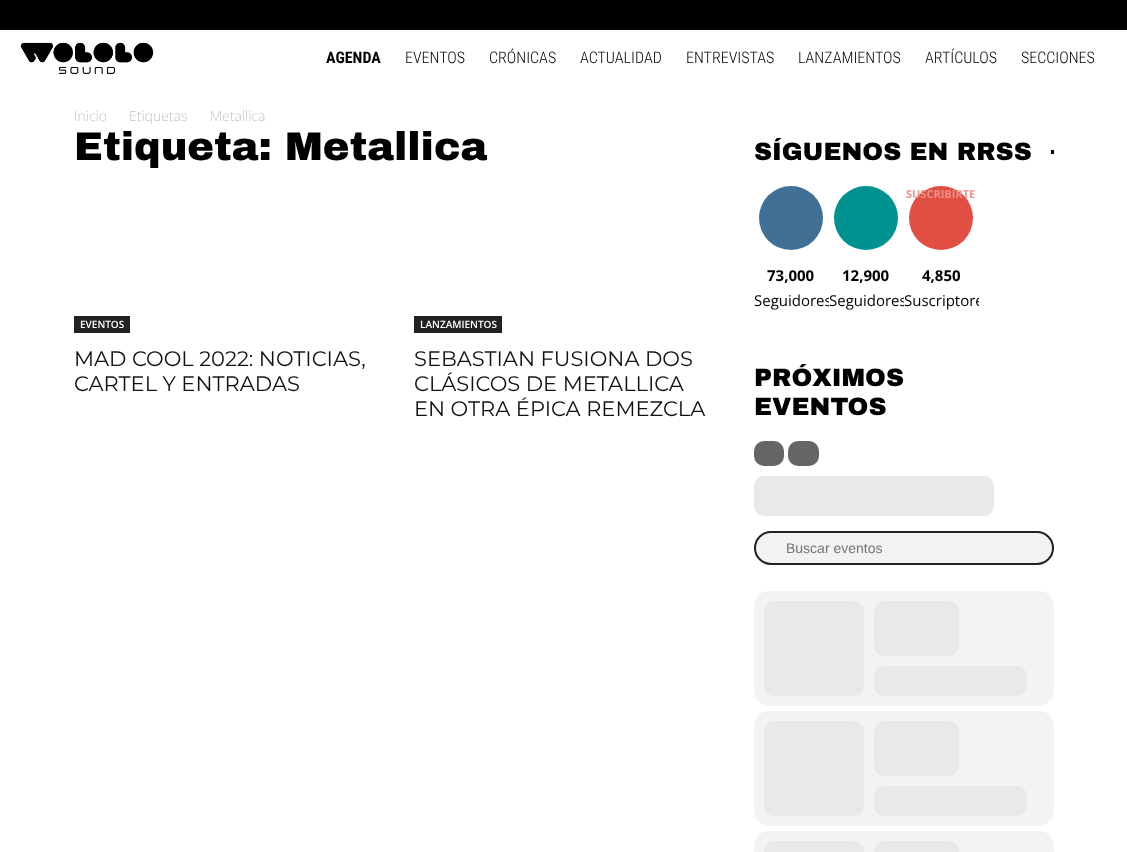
<!DOCTYPE html>
<meta charset="utf-8">
<style>body { margin: 0 } canvas { display: block }</style>
<canvas id="canvas" width="1127" height="852"></canvas>
<img id="img1" src="images/1.png" hidden>
<script>
window.onload = function () {
    const canvas = document.getElementById('canvas');
    const context = canvas.getContext('2d');
    context.miterLimit = 4;
    context.fontKerning = 'normal';

    context.fillStyle = 'rgb(255, 255, 255)';
    context.fillRect(0, 0, 1127, 852);
    context.fillStyle = 'rgb(0, 0, 0)';
    context.fillRect(0, 0, 1127, 30);
    context.drawImage(document.getElementById('img1'), 20, 42, 134, 32);
    context.fillStyle = 'rgb(34, 34, 34)';
    context.fillRect(74, 316, 56, 17);
    context.fillRect(414, 316, 88, 17);
    context.fillStyle = 'rgb(0, 0, 0)';
    context.fillRect(1051, 150, 3, 4);
    context.fillStyle = 'rgb(65, 112, 150)';
    context.beginPath();
    context.arc(791, 218, 32, 0, 2 * Math.PI);
    context.fill();
    context.fillStyle = 'rgb(0, 145, 145)';
    context.beginPath();
    context.arc(866, 218, 32, 0, 2 * Math.PI);
    context.fill();
    context.fillStyle = 'rgb(225, 78, 66)';
    context.beginPath();
    context.arc(941, 218, 32, 0, 2 * Math.PI);
    context.fill();
    context.fillStyle = 'rgb(101, 101, 101)';
    context.beginPath();
    context.roundRect(754, 441, 30, 25, 10);
    context.fill();
    context.beginPath();
    context.roundRect(788, 441, 31, 25, 10);
    context.fill();
    context.fillStyle = 'rgb(233, 233, 233)';
    context.beginPath();
    context.roundRect(754, 476, 240, 40, 10);
    context.fill();
    context.fillStyle = 'rgb(242, 242, 242)';
    context.beginPath();
    context.roundRect(755, 532, 298, 32, 16);
    context.fill();
    context.strokeStyle = 'rgb(32, 33, 36)';
    context.lineWidth = 2;
    context.stroke();
    context.fillStyle = 'rgb(243, 243, 243)';
    context.beginPath();
    context.roundRect(754, 591, 300, 115, 15);
    context.fill();
    context.fillStyle = 'rgb(233, 233, 233)';
    context.beginPath();
    context.roundRect(764, 601, 100, 95, 10);
    context.fill();
    context.beginPath();
    context.roundRect(874, 601, 85, 55, 10);
    context.fill();
    context.beginPath();
    context.roundRect(874, 666, 153, 30, 10);
    context.fill();
    context.fillStyle = 'rgb(243, 243, 243)';
    context.beginPath();
    context.roundRect(754, 711, 300, 115, 15);
    context.fill();
    context.fillStyle = 'rgb(233, 233, 233)';
    context.beginPath();
    context.roundRect(764, 721, 100, 95, 10);
    context.fill();
    context.beginPath();
    context.roundRect(874, 721, 85, 55, 10);
    context.fill();
    context.beginPath();
    context.roundRect(874, 786, 153, 30, 10);
    context.fill();
    context.fillStyle = 'rgb(243, 243, 243)';
    context.beginPath();
    context.roundRect(754, 831, 300, 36, 15);
    context.fill();
    context.fillStyle = 'rgb(233, 233, 233)';
    context.beginPath();
    context.roundRect(764, 841, 100, 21, 10);
    context.fill();
    context.beginPath();
    context.roundRect(874, 841, 85, 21, 10);
    context.fill();
    context.font = 'bold 16px Roboto Condensed';
    context.fillStyle = 'rgb(0, 0, 0)';
    context.fillText('AGENDA', 326, 63);
    context.font = '300 16px Roboto Condensed';
    context.fillText('EVENTOS', 405, 63);
    context.fillText('CRÓNICAS', 489, 63);
    context.fillText('ACTUALIDAD', 580, 63);
    context.fillText('ENTREVISTAS', 686, 63);
    context.fillText('LANZAMIENTOS', 798, 63);
    context.fillText('ARTÍCULOS', 925, 63);
    context.fillText('SECCIONES', 1021, 63);
    context.font = '300 14px Open Sans';
    context.fillStyle = 'rgb(195, 195, 195)';
    context.fillText('Inicio', 74, 121);
    context.fillText('Etiquetas', 129, 121);
    context.fillText('Metallica', 210, 121);
    context.font = '40px Archivo Black';
    context.fillStyle = 'rgb(0, 0, 0)';
    context.fillText('Etiqueta: Metallica', 74, 160);
    context.font = '600 10px Open Sans';
    context.fillStyle = 'rgb(255, 255, 255)';
    context.fillText('EVENTOS', 80, 328);
    context.font = '21px Montserrat';
    context.fillStyle = 'rgb(17, 17, 17)';
    context.fillText('MAD COOL 2022: NOTICIAS,', 74, 366);
    context.fillText('CARTEL Y ENTRADAS', 74, 391);
    context.font = '600 10px Open Sans';
    context.fillStyle = 'rgb(255, 255, 255)';
    context.fillText('LANZAMIENTOS', 420, 328);
    context.font = '21px Montserrat';
    context.fillStyle = 'rgb(17, 17, 17)';
    context.fillText('SEBASTIAN FUSIONA DOS', 414, 366);
    context.fillText('CLÁSICOS DE METALLICA', 414, 391);
    context.fillText('EN OTRA ÉPICA REMEZCLA', 414, 416);
    context.font = '25px Archivo Black';
    context.fillStyle = 'rgb(0, 0, 0)';
    context.fillText('SÍGUENOS EN RRSS', 754, 160);
    context.font = 'bold 15px Open Sans';
    context.fillText('73,000', 767, 281);
    context.save();
    context.beginPath();
    context.rect(754, 186, 75, 130);
    context.clip();
    context.font = '15px Open Sans';
    context.fillText('Seguidores', 754, 306);
    context.restore();
    context.fillText('12,900', 842, 281);
    context.save();
    context.beginPath();
    context.rect(829, 186, 75, 130);
    context.clip();
    context.font = '15px Open Sans';
    context.fillText('Seguidores', 829, 306);
    context.restore();
    context.font = 'bold 11px Open Sans';
    context.fillStyle = 'rgb(236, 145, 138)';
    context.fillText('SUSCRIBIRTE', 906, 198);
    context.font = 'bold 15px Open Sans';
    context.fillStyle = 'rgb(0, 0, 0)';
    context.fillText('4,850', 922, 281);
    context.save();
    context.beginPath();
    context.rect(904, 186, 75, 130);
    context.clip();
    context.font = '15px Open Sans';
    context.fillText('Suscriptore', 904, 306);
    context.restore();
    context.font = '25px Archivo Black';
    context.fillText('PRÓXIMOS', 754, 386);
    context.fillText('EVENTOS', 754, 415);
    context.font = '14px Liberation Sans';
    context.fillStyle = 'rgb(117, 117, 117)';
    context.fillText('Buscar eventos', 786, 553);
};
</script>
